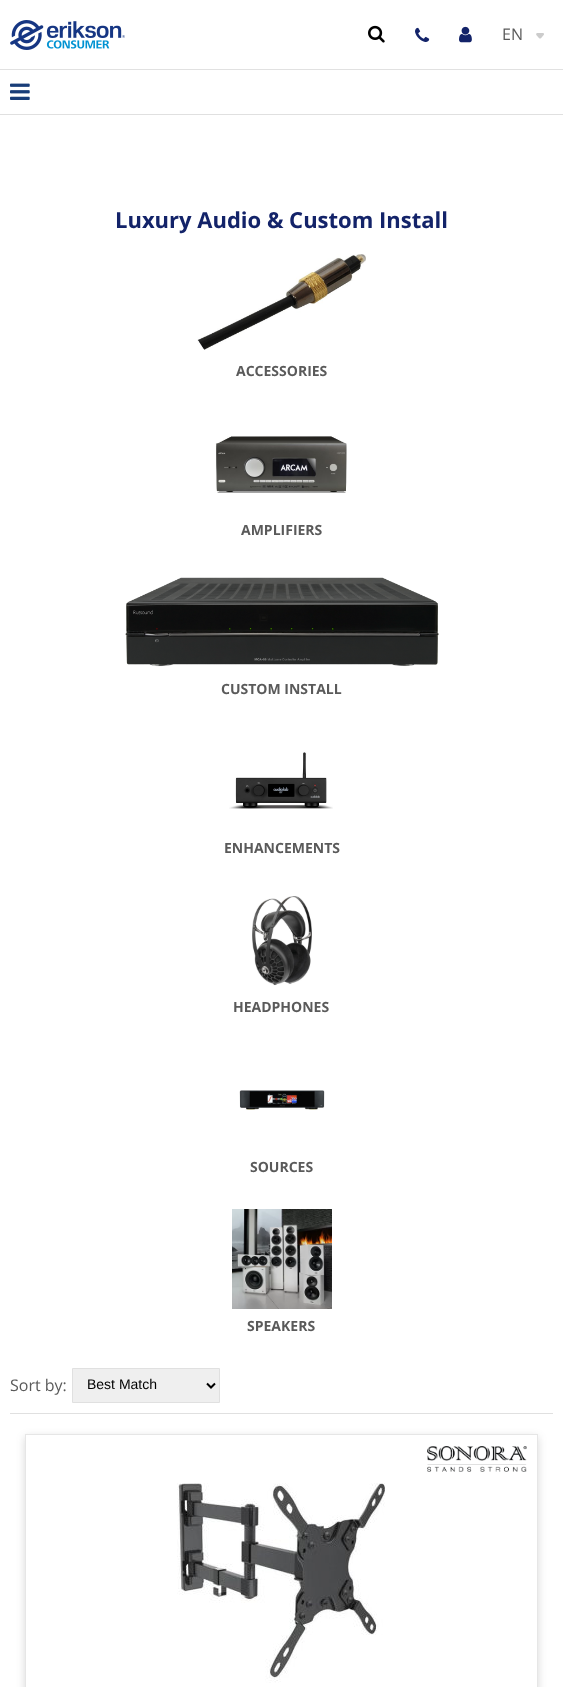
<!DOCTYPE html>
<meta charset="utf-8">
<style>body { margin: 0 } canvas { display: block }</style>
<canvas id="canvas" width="563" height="1687"></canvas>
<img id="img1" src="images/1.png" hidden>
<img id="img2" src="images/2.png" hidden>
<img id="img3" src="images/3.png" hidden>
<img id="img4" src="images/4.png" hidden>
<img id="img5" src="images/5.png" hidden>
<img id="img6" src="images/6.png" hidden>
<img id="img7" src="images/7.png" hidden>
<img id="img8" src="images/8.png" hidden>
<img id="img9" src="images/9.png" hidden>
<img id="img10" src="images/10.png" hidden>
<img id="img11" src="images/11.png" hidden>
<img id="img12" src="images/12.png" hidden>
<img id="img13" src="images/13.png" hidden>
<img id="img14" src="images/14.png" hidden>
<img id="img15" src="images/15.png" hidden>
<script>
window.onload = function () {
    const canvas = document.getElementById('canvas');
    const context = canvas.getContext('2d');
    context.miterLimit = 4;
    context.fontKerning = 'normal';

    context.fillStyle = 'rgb(255, 255, 255)';
    context.fillRect(0, 0, 563, 1687);
    context.fillStyle = 'rgb(225, 225, 225)';
    context.fillRect(0, 69, 563, 1);
    context.drawImage(document.getElementById('img1'), 10, 20, 115, 30);
    context.drawImage(document.getElementById('img2'), 368, 25, 17, 18);
    context.drawImage(document.getElementById('img3'), 415, 27, 15, 15);
    context.drawImage(document.getElementById('img4'), 459, 26, 13, 17);
    context.drawImage(document.getElementById('img5'), 536, 33, 8, 6);
    context.fillStyle = 'rgb(224, 224, 224)';
    context.fillRect(0, 114, 563, 1);
    context.drawImage(document.getElementById('img6'), 10, 83, 20, 17);
    context.drawImage(document.getElementById('img7'), 197, 254, 169, 96);
    context.drawImage(document.getElementById('img8'), 215, 436, 132, 57);
    context.drawImage(document.getElementById('img9'), 125, 577, 314, 90);
    context.drawImage(document.getElementById('img10'), 229, 752, 104, 57);
    context.drawImage(document.getElementById('img11'), 252, 896, 60, 90);
    context.drawImage(document.getElementById('img12'), 239, 1090, 86, 20);
    context.drawImage(document.getElementById('img13'), 232, 1209, 100, 100);
    context.fillRect(10, 1413, 543, 1);
    context.fillStyle = 'rgb(239, 239, 239)';
    context.beginPath();
    context.rect(72.5, 1368.5, 147, 34);
    context.fill();
    context.strokeStyle = 'rgb(224, 224, 224)';
    context.stroke();
    context.beginPath();
    context.moveTo(207, 1383.5);
    context.lineTo(211, 1387.5);
    context.lineTo(215, 1383.5);
    context.strokeStyle = 'rgb(0, 0, 0)';
    context.lineWidth = 2;
    context.stroke();
    context.save();
    context.beginPath();
    context.moveTo(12, 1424);
    context.lineTo(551, 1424);
    context.lineTo(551, 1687);
    context.lineTo(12, 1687);
    context.closePath();
    context.moveTo(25, 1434);
    context.lineTo(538, 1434);
    context.lineTo(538, 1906);
    context.lineTo(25, 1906);
    context.closePath();
    context.clip('evenodd');
    context.fillStyle = 'rgba(50, 50, 50, 0.2)';
    context.filter = 'blur(4px)';
    context.beginPath();
    context.rect(25, 1437, 513, 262);
    context.fill();
    context.filter = 'none';
    context.restore();
    context.strokeStyle = 'rgb(230, 230, 230)';
    context.lineWidth = 1;
    context.strokeRect(25.5, 1434.5, 512, 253);
    context.drawImage(document.getElementById('img14'), 427, 1446, 100, 26);
    context.drawImage(document.getElementById('img15'), 177, 1483, 208, 200);
    context.font = '16px Open Sans';
    context.fillStyle = 'rgb(90, 90, 90)';
    context.fillText('EN', 502, 40);
    context.font = 'bold 22px Open Sans';
    context.fillStyle = 'rgb(19, 35, 105)';
    context.fillText('Luxury Audio & Custom Install', 115, 228);
    context.font = 'bold 14px Open Sans';
    context.fillStyle = 'rgb(90, 90, 90)';
    context.fillText('ACCESSORIES', 236, 376);
    context.fillText('AMPLIFIERS', 241, 535);
    context.fillText('CUSTOM INSTALL', 221, 694);
    context.fillText('ENHANCEMENTS', 224, 853);
    context.fillText('HEADPHONES', 233, 1012);
    context.fillText('SOURCES', 250, 1172);
    context.fillText('SPEAKERS', 247, 1331);
    context.font = '16px Open Sans';
    context.fillText('Sort by:', 10, 1391);
    context.font = '14px Liberation Sans';
    context.fillStyle = 'rgb(0, 0, 0)';
    context.fillText('Best Match', 87, 1389);
};
</script>
